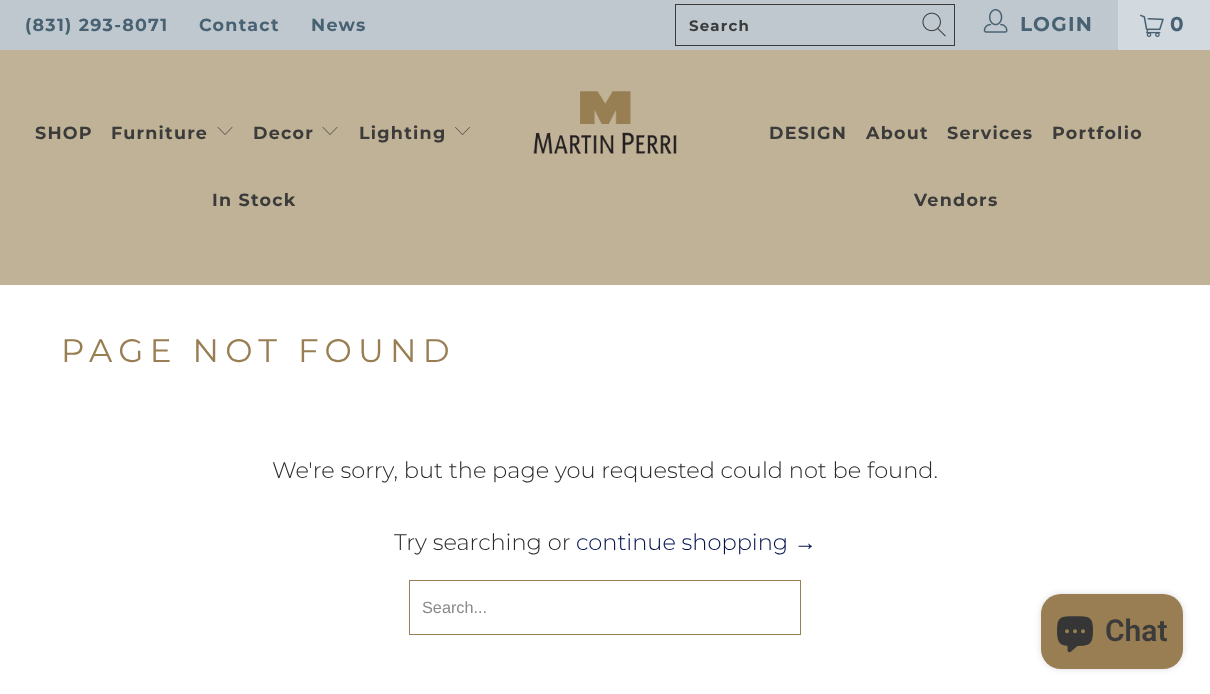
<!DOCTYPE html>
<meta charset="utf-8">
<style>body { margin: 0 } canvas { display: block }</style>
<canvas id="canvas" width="1210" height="694"></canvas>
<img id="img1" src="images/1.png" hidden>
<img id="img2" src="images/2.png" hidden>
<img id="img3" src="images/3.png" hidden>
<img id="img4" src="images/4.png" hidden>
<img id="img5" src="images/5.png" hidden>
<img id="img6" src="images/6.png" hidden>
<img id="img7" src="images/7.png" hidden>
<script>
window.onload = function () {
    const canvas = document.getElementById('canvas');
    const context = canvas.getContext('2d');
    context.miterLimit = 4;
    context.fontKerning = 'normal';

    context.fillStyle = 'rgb(255, 255, 255)';
    context.fillRect(0, 0, 1210, 694);
    context.fillStyle = 'rgb(191, 200, 206)';
    context.fillRect(0, 0, 1118, 50);
    context.strokeStyle = 'rgb(59, 59, 59)';
    context.strokeRect(675.5, 4.5, 279, 41);
    context.drawImage(document.getElementById('img1'), 922, 12, 24, 25);
    context.drawImage(document.getElementById('img2'), 983, 9, 25, 24);
    context.fillStyle = 'rgb(210, 217, 223)';
    context.fillRect(1118, 0, 92, 50);
    context.drawImage(document.getElementById('img3'), 1140, 14, 24, 23);
    context.fillStyle = 'rgb(192, 178, 150)';
    context.fillRect(0, 50, 1210, 235);
    context.drawImage(document.getElementById('img4'), 217, 127, 16, 8);
    context.drawImage(document.getElementById('img4'), 322, 127, 16, 8);
    context.drawImage(document.getElementById('img5'), 455, 127, 15, 8);
    context.drawImage(document.getElementById('img6'), 533, 91, 144, 63);
    context.strokeStyle = 'rgb(152, 126, 82)';
    context.strokeRect(409.5, 580.5, 391, 54);
    context.fillStyle = 'rgba(0, 0, 0, 0.15)';
    context.filter = 'blur(3px)';
    context.beginPath();
    context.roundRect(1041, 594, 142, 75, 20);
    context.fill();
    context.filter = 'none';
    context.fillStyle = 'rgb(152, 126, 82)';
    context.beginPath();
    context.roundRect(1041, 594, 142, 75, 20);
    context.fill();
    context.drawImage(document.getElementById('img7'), 1057, 616, 36, 37);
    context.letterSpacing = '1.25px';
    context.font = 'bold 17.5px Montserrat';
    context.fillStyle = 'rgb(72, 98, 115)';
    context.fillText('(831) 293-8071', 25, 31);
    context.fillText('Contact', 199, 31);
    context.fillText('News', 311, 31);
    context.font = 'bold 15px Montserrat';
    context.fillStyle = 'rgb(59, 59, 59)';
    context.fillText('Search', 689, 31);
    context.font = 'bold 20px Montserrat';
    context.fillStyle = 'rgb(72, 98, 115)';
    context.fillText('LOGIN', 1020, 31);
    context.fillText('0', 1170, 31);
    context.font = 'bold 17.5px Montserrat';
    context.fillStyle = 'rgb(59, 59, 59)';
    context.fillText('SHOP', 35, 139);
    context.fillText('Furniture', 111, 139);
    context.fillText('Decor', 253, 139);
    context.fillText('Lighting', 359, 139);
    context.fillText('In Stock', 212, 206);
    context.fillText('DESIGN', 769, 139);
    context.fillText('About', 866, 139);
    context.fillText('Services', 947, 139);
    context.fillText('Portfolio', 1052, 139);
    context.fillText('Vendors', 914, 206);
    context.letterSpacing = '6.25px';
    context.font = '32.5px Montserrat';
    context.fillStyle = 'rgb(152, 126, 82)';
    context.fillText('PAGE NOT FOUND', 61, 362);
    context.letterSpacing = '0px';
    context.font = '300 22.5px Montserrat';
    context.fillStyle = 'rgb(43, 42, 42)';
    context.fillText('We\'re sorry, but the page you requested could not be found.', 272, 478);
    context.fillText('Try searching or', 394, 550);
    context.fillStyle = 'rgb(2, 15, 76)';
    context.fillText('continue shopping', 576, 550);
    context.font = '22.5px Liberation Sans';
    context.fillText('→', 794, 550);
    context.font = '16.25px Liberation Sans';
    context.fillStyle = 'rgb(136, 136, 136)';
    context.fillText('Search...', 422, 613);
    context.font = '600 30px Roboto';
    context.fillStyle = 'rgb(59, 59, 59)';
    context.fillText('Chat', 1105, 641);
};
</script>
